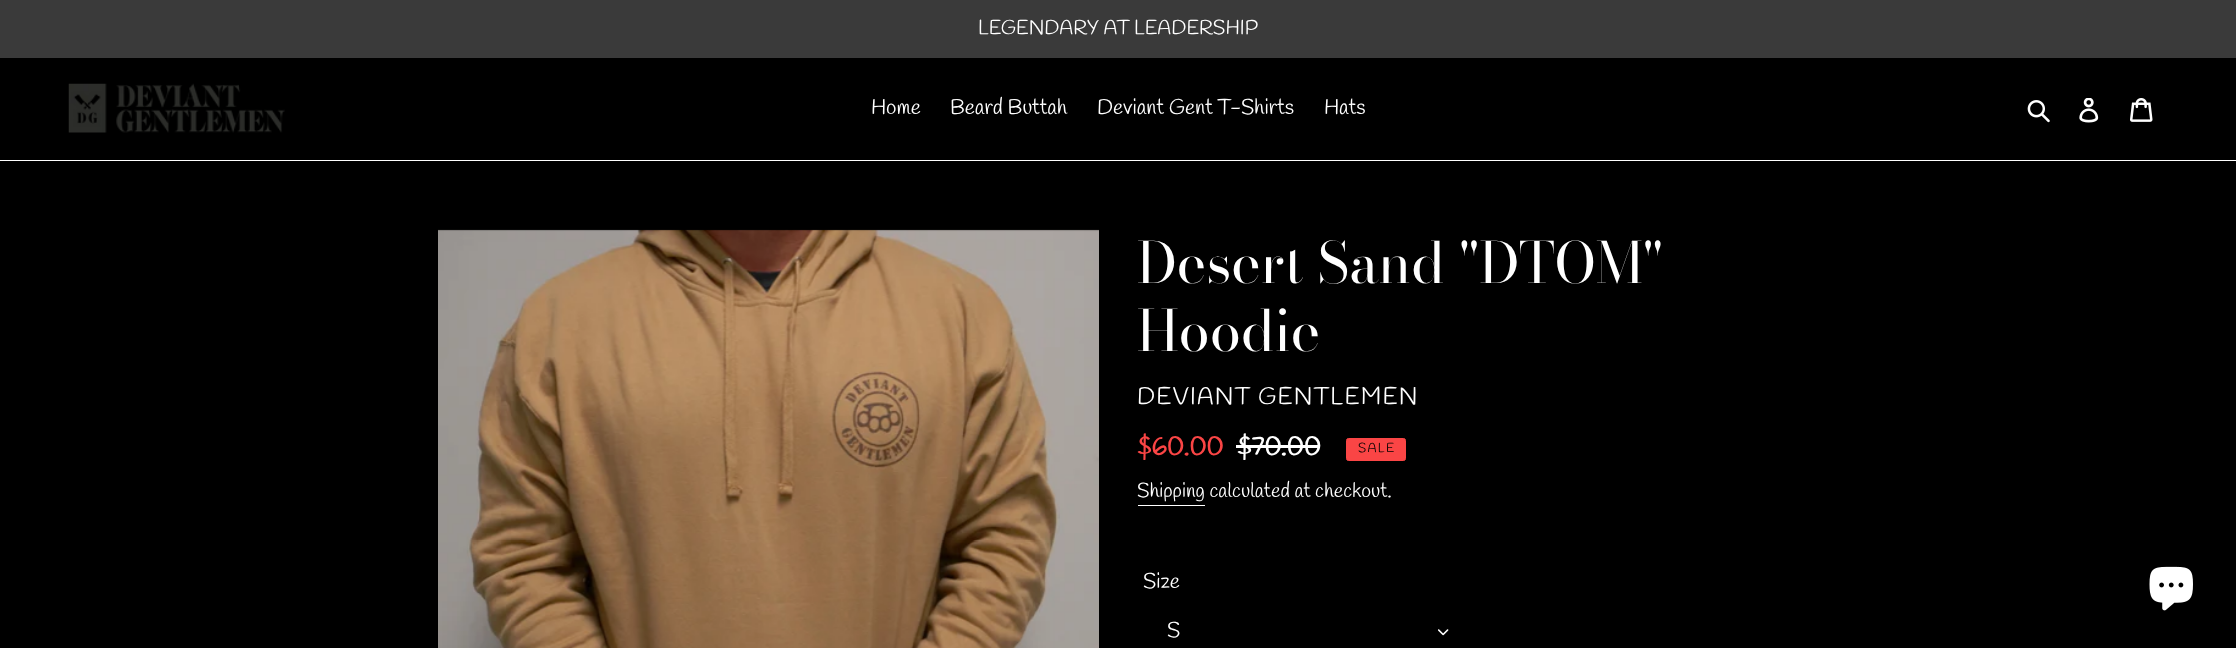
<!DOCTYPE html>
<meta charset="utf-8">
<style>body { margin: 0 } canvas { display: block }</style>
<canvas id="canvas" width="2236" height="648"></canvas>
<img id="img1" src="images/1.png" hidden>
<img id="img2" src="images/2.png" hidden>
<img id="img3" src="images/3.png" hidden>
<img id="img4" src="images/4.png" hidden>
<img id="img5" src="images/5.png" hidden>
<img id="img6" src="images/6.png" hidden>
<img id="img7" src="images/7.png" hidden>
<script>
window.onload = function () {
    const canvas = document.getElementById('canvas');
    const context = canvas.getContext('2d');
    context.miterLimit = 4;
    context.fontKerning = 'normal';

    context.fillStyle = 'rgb(0, 0, 0)';
    context.fillRect(0, 0, 2236, 648);
    context.fillStyle = 'rgb(58, 58, 58)';
    context.fillRect(0, 0, 2236, 58);
    context.fillStyle = 'rgb(255, 255, 255)';
    context.fillRect(0, 160, 2236, 1);
    context.drawImage(document.getElementById('img1'), 68, 83, 217, 50);
    context.drawImage(document.getElementById('img2'), 2027, 100, 23, 23);
    context.drawImage(document.getElementById('img3'), 2079, 98, 20, 25);
    context.drawImage(document.getElementById('img4'), 2130, 98, 23, 24);
    context.drawImage(document.getElementById('img5'), 438, 229, 661, 419);
    context.fillRect(1236, 445, 84, 3);
    context.fillStyle = 'rgb(250, 69, 69)';
    context.beginPath();
    context.roundRect(1346.5, 438.5, 59, 22, 2);
    context.fill();
    context.strokeStyle = 'rgb(250, 69, 69)';
    context.stroke();
    context.fillStyle = 'rgb(255, 255, 255)';
    context.fillRect(1138, 505, 67, 1);
    context.drawImage(document.getElementById('img6'), 1438, 629, 11, 7);
    context.drawImage(document.getElementById('img7'), 2149, 566, 44, 45);
    context.font = '20px Handlee';
    context.fillText('LEGENDARY AT LEADERSHIP', 978, 34);
    context.font = '21.25px Handlee';
    context.fillText('Home', 871, 114);
    context.fillText('Beard Buttah', 950, 114);
    context.fillText('Deviant Gent T-Shirts', 1097, 114);
    context.fillText('Hats', 1324, 114);
    context.font = '56.25px Bodoni Moda';
    context.fillText('Desert Sand "DTOM"', 1137, 283);
    context.fillText('Hoodie', 1137, 351);
    context.letterSpacing = '1.25px';
    context.font = '23.9px Handlee';
    context.fillText('DEVIANT GENTLEMEN', 1137, 404);
    context.letterSpacing = '0px';
    context.font = 'bold 26.5px Handlee';
    context.fillStyle = 'rgb(250, 69, 69)';
    context.fillText('$60.00', 1137, 455);
    context.fillStyle = 'rgb(255, 255, 255)';
    context.fillText('$70.00', 1237, 455);
    context.letterSpacing = '1.25px';
    context.font = '13px Handlee';
    context.fillStyle = 'rgb(0, 0, 0)';
    context.fillText('SALE', 1358, 452);
    context.letterSpacing = '0px';
    context.font = '20px Handlee';
    context.fillStyle = 'rgb(255, 255, 255)';
    context.fillText('Shipping calculated at checkout.', 1137, 497);
    context.font = '21.25px Handlee';
    context.fillText('Size', 1143, 588);
    context.fillText('S', 1167, 637);
};
</script>
